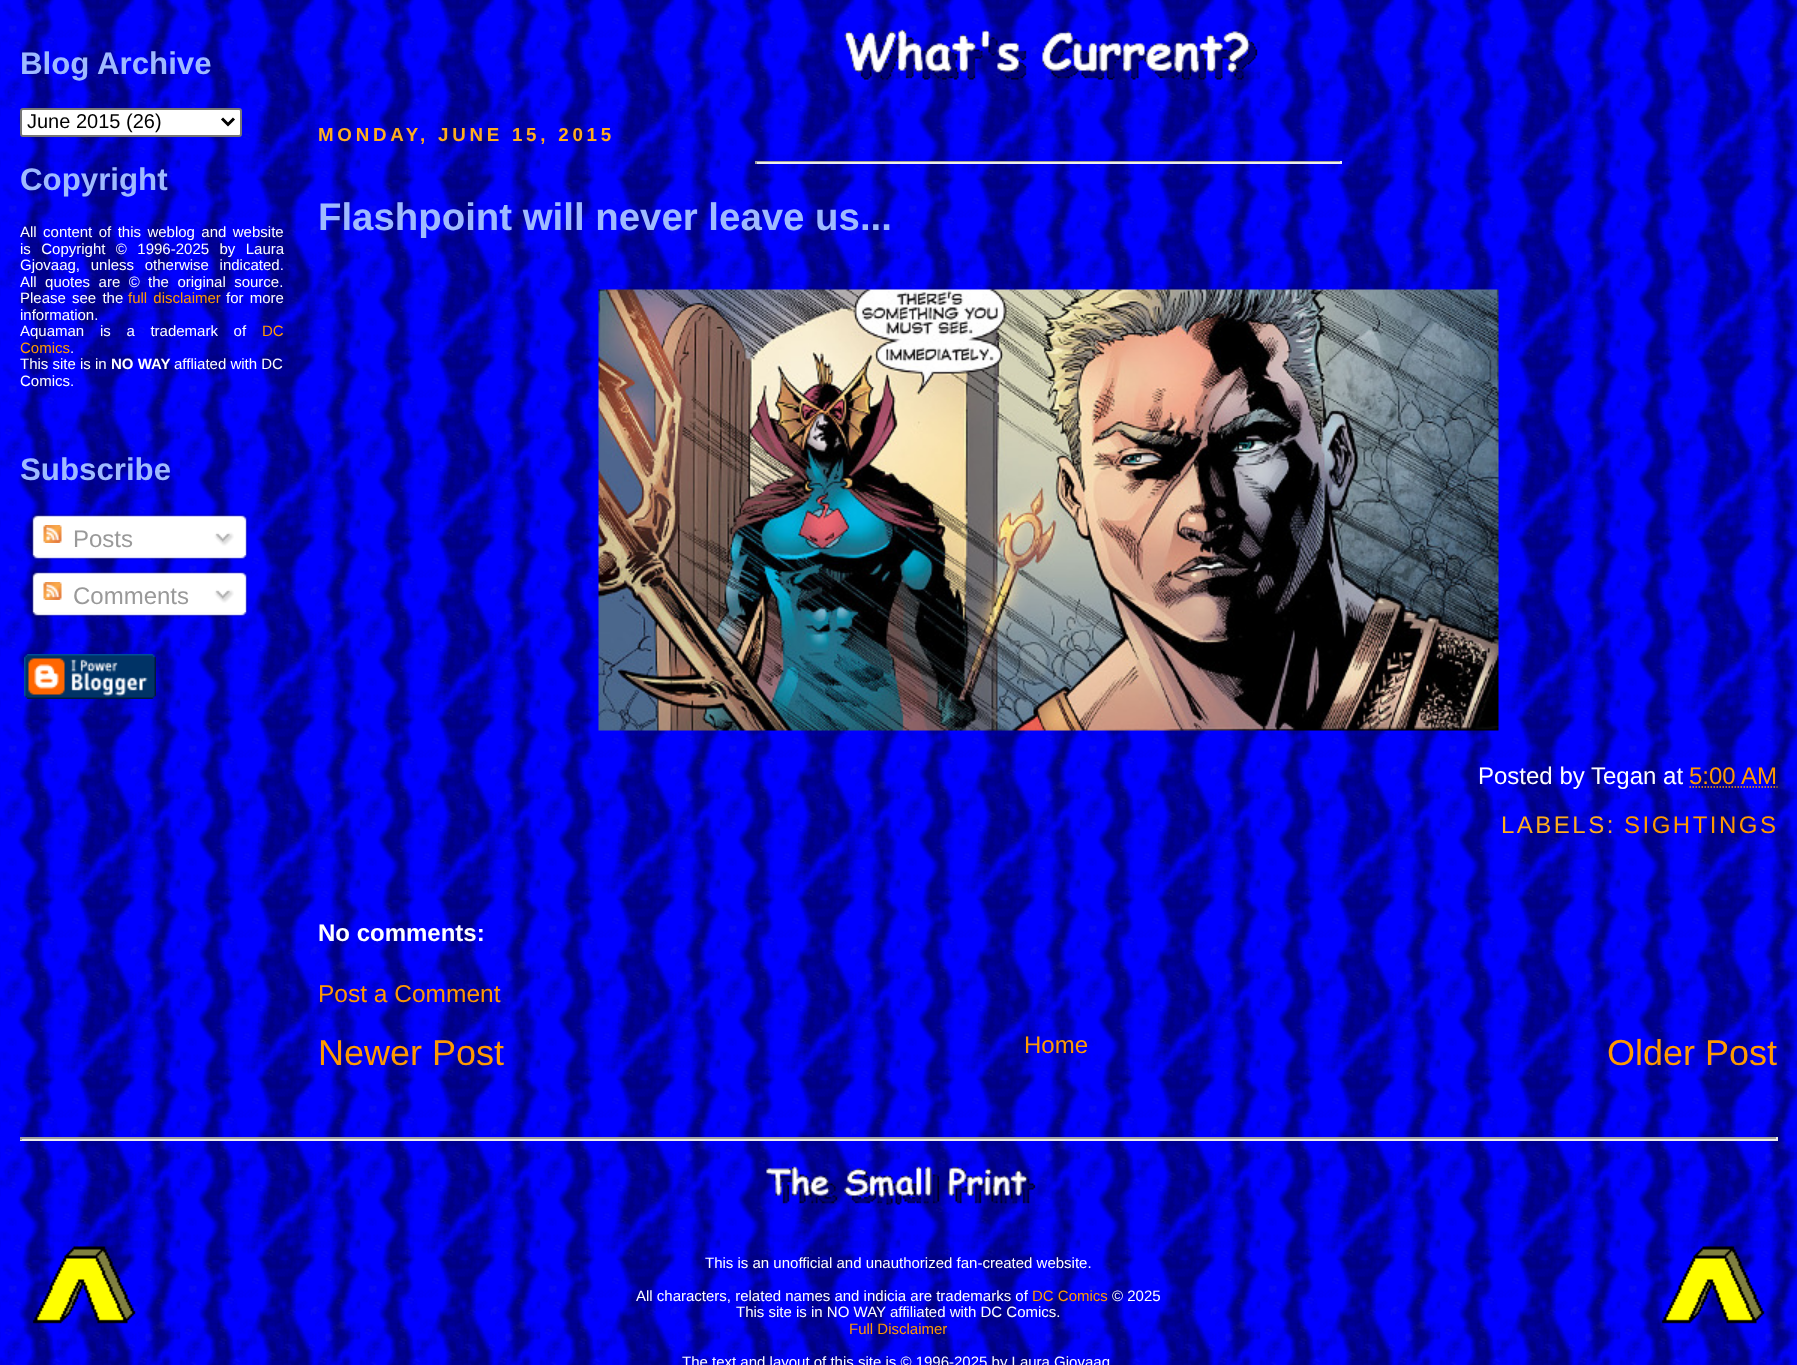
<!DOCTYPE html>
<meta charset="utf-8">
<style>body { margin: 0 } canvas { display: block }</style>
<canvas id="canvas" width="1797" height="1365"></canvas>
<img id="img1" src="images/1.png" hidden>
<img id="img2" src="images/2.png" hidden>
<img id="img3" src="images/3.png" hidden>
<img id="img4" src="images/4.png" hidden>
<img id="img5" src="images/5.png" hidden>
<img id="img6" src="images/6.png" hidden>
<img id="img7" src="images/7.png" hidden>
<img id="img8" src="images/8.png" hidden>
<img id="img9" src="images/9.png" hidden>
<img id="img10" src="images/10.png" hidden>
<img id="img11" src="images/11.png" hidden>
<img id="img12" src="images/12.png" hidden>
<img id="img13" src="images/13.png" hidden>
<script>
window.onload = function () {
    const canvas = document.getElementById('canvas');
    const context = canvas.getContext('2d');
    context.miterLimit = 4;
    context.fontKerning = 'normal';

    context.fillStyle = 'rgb(255, 255, 255)';
    context.fillRect(0, 0, 1797, 1365);
    context.drawImage(document.getElementById('img1'), 0, 0, 1797, 1365);
    context.beginPath();
    context.roundRect(21, 109, 220, 27, 2);
    context.fill();
    context.strokeStyle = 'rgb(118, 118, 118)';
    context.lineWidth = 2;
    context.stroke();
    context.beginPath();
    context.moveTo(222, 118.5);
    context.lineTo(228, 124.5);
    context.lineTo(234, 118.5);
    context.strokeStyle = 'rgb(0, 0, 0)';
    context.lineWidth = 3;
    context.stroke();
    context.drawImage(document.getElementById('img2'), 31, 514, 217, 41);
    context.drawImage(document.getElementById('img3'), 43, 525, 19, 18);
    context.drawImage(document.getElementById('img4'), 214, 532, 20, 14);
    context.drawImage(document.getElementById('img5'), 31, 555, 217, 5);
    context.drawImage(document.getElementById('img6'), 31, 571, 217, 41);
    context.drawImage(document.getElementById('img3'), 43, 582, 19, 18);
    context.drawImage(document.getElementById('img4'), 214, 589, 20, 14);
    context.drawImage(document.getElementById('img7'), 31, 612, 217, 5);
    context.drawImage(document.getElementById('img8'), 24, 654, 132, 45);
    context.drawImage(document.getElementById('img9'), 844, 29, 414, 51);
    context.fillStyle = 'rgb(159, 159, 159)';
    context.fillRect(755, 161, 586, 1);
    context.fillStyle = 'rgb(238, 238, 238)';
    context.fillRect(1340, 161, 2, 3);
    context.fillRect(755, 162, 586, 2);
    context.fillStyle = 'rgb(159, 159, 159)';
    context.fillRect(755, 161, 2, 3);
    context.drawImage(document.getElementById('img10'), 598, 289, 901, 442);
    context.beginPath();
    context.moveTo(1689.5, 787);
    context.lineTo(1777.5, 787);
    context.strokeStyle = 'rgb(255, 153, 0)';
    context.lineWidth = 1.5;
    context.setLineDash([1.5, 1.5]);
    context.stroke();
    context.fillRect(20, 1137, 1758, 2);
    context.fillStyle = 'rgb(238, 238, 238)';
    context.fillRect(1776, 1137, 2, 3);
    context.fillRect(20, 1139, 1758, 2);
    context.fillStyle = 'rgb(159, 159, 159)';
    context.fillRect(20, 1137, 2, 3);
    context.drawImage(document.getElementById('img11'), 766, 1166, 270, 39);
    context.drawImage(document.getElementById('img12'), 32, 1246, 104, 78);
    context.drawImage(document.getElementById('img13'), 1661, 1246, 104, 78);
    context.font = 'bold 31.25px Liberation Sans';
    context.fillStyle = 'rgb(159, 186, 255)';
    context.fillText('Blog Archive', 20, 74);
    context.font = '20px Liberation Sans';
    context.fillStyle = 'rgb(0, 0, 0)';
    context.fillText('June 2015 (26)', 27, 128);
    context.font = 'bold 31.25px Liberation Sans';
    context.fillStyle = 'rgb(159, 186, 255)';
    context.fillText('Copyright', 20, 190);
    context.wordSpacing = '2.25px';
    context.font = '15px Liberation Sans';
    context.fillStyle = 'rgb(255, 255, 255)';
    context.fillText('All content of this weblog and website', 20, 237);
    context.wordSpacing = '6.25px';
    context.fillText('is Copyright © 1996-2025 by Laura', 20, 254);
    context.wordSpacing = '6.5px';
    context.fillText('Gjovaag, unless otherwise indicated.', 20, 270);
    context.wordSpacing = '4.25px';
    context.fillText('All quotes are © the original source.', 20, 287);
    context.wordSpacing = '2px';
    context.fillText('Please see the', 20, 303);
    context.fillStyle = 'rgb(255, 153, 0)';
    context.fillText('full disclaimer', 128, 303);
    context.fillStyle = 'rgb(255, 255, 255)';
    context.fillText('for more', 226, 303);
    context.wordSpacing = '0px';
    context.fillText('information.', 20, 320);
    context.wordSpacing = '11.5px';
    context.fillText('Aquaman is a trademark of', 20, 336);
    context.wordSpacing = '0px';
    context.fillStyle = 'rgb(255, 153, 0)';
    context.fillText('DC', 262, 336);
    context.fillText('Comics', 20, 353);
    context.fillStyle = 'rgb(255, 255, 255)';
    context.fillText('.', 70, 353);
    context.fillText('This site is in', 20, 369);
    context.font = 'bold 15px Liberation Sans';
    context.fillText('NO WAY', 111, 369);
    context.font = '15px Liberation Sans';
    context.fillText('affliated with DC', 174, 369);
    context.fillText('Comics.', 20, 386);
    context.font = 'bold 31.25px Liberation Sans';
    context.fillStyle = 'rgb(159, 186, 255)';
    context.fillText('Subscribe', 20, 480);
    context.font = '24px Liberation Sans';
    context.fillStyle = 'rgb(153, 153, 153)';
    context.fillText('Posts', 73, 547);
    context.fillText('Comments', 73, 604);
    context.letterSpacing = '3.75px';
    context.font = 'bold 18.75px Liberation Sans';
    context.fillStyle = 'rgb(255, 173, 29)';
    context.fillText('MONDAY, JUNE 15, 2015', 318, 141);
    context.letterSpacing = '0px';
    context.font = 'bold 38.4px Liberation Sans';
    context.fillStyle = 'rgb(159, 186, 255)';
    context.fillText('Flashpoint will never leave us...', 318, 230);
    context.font = '24px Liberation Sans';
    context.fillStyle = 'rgb(255, 255, 255)';
    context.fillText('Posted by', 1478, 784);
    context.fillText('Tegan at', 1591, 784);
    context.fillStyle = 'rgb(255, 153, 0)';
    context.fillText('5:00 AM', 1689, 784);
    context.letterSpacing = '2.5px';
    context.fillStyle = 'rgb(255, 173, 29)';
    context.fillText('LABELS:', 1501, 833);
    context.fillStyle = 'rgb(255, 153, 0)';
    context.fillText('SIGHTINGS', 1624, 833);
    context.letterSpacing = '0px';
    context.font = 'bold 24px Liberation Sans';
    context.fillStyle = 'rgb(255, 255, 255)';
    context.fillText('No comments:', 318, 941);
    context.font = '24.5px Liberation Sans';
    context.fillStyle = 'rgb(255, 153, 0)';
    context.fillText('Post a Comment', 318, 1002);
    context.font = '36px Liberation Sans';
    context.fillText('Newer Post', 318, 1065);
    context.font = '24px Liberation Sans';
    context.fillText('Home', 1024, 1053);
    context.font = '36px Liberation Sans';
    context.fillText('Older Post', 1607, 1065);
    context.font = '15px Liberation Sans';
    context.fillStyle = 'rgb(255, 255, 255)';
    context.fillText('This is an unofficial and unauthorized fan-created website.', 705, 1268);
    context.fillText('All characters, related names and indicia are trademarks of', 636, 1301);
    context.fillStyle = 'rgb(255, 153, 0)';
    context.fillText('DC Comics', 1032, 1301);
    context.fillStyle = 'rgb(255, 255, 255)';
    context.fillText('© 2025', 1112, 1301);
    context.fillText('This site is in NO WAY affiliated with DC Comics.', 736, 1317);
    context.fillStyle = 'rgb(255, 153, 0)';
    context.fillText('Full Disclaimer', 849, 1334);
    context.fillStyle = 'rgb(255, 255, 255)';
    context.fillText('The text and layout of this site is © 1996-2025 by Laura Gjovaag', 682, 1367);
};
</script>
